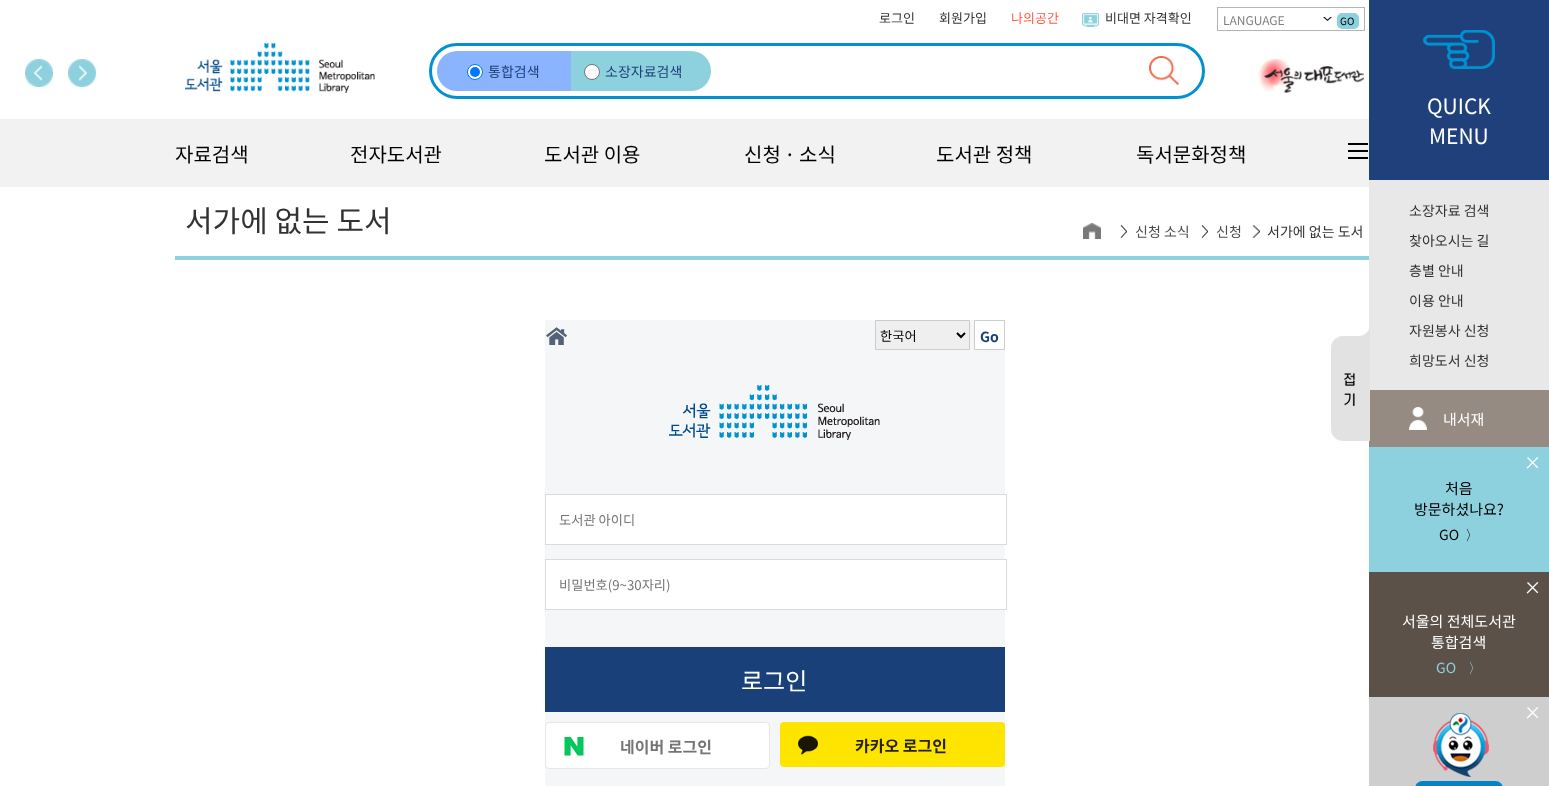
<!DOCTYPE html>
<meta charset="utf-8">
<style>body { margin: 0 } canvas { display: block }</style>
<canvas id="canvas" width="1549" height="786"></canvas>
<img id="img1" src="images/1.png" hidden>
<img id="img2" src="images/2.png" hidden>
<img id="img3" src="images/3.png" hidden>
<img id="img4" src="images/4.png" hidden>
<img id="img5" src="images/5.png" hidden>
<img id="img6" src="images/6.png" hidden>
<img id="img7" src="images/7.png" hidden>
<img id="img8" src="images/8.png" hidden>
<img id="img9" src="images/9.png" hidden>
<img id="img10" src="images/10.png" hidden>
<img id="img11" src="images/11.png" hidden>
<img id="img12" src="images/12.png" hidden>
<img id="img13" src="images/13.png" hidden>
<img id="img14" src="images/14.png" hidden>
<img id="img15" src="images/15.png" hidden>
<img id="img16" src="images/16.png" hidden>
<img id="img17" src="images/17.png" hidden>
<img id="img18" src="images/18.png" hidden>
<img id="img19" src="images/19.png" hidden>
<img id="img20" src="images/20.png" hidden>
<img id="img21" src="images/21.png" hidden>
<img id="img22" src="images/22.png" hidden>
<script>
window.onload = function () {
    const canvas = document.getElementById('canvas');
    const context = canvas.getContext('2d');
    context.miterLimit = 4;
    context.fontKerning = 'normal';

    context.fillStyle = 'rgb(255, 255, 255)';
    context.fillRect(0, 0, 1549, 786);
    context.drawImage(document.getElementById('img1'), 25, 59, 28, 28);
    context.drawImage(document.getElementById('img2'), 68, 59, 28, 28);
    context.drawImage(document.getElementById('img3'), 1082, 13, 17, 14);
    context.strokeStyle = 'rgb(180, 180, 180)';
    context.strokeRect(1217.5, 7.5, 147, 23);
    context.drawImage(document.getElementById('img4'), 1323, 17, 9, 4);
    context.fillStyle = 'rgb(142, 209, 222)';
    context.beginPath();
    context.roundRect(1337, 13, 22, 16, 5);
    context.fill();
    context.drawImage(document.getElementById('img5'), 185, 43, 190, 50);
    context.beginPath();
    context.roundRect(430.5, 44.5, 773, 53, 26.5);
    context.strokeStyle = 'rgb(0, 146, 208)';
    context.lineWidth = 3;
    context.stroke();
    context.fillStyle = 'rgb(139, 180, 255)';
    context.beginPath();
    context.roundRect(437, 51, 136, 40, [20, 0, 0, 20]);
    context.fill();
    context.fillStyle = 'rgb(255, 255, 255)';
    context.beginPath();
    context.arc(475, 72, 7.5, 0, 2 * Math.PI);
    context.fill();
    context.strokeStyle = 'rgb(0, 117, 255)';
    context.lineWidth = 1;
    context.stroke();
    context.fillStyle = 'rgb(0, 117, 255)';
    context.beginPath();
    context.arc(475, 72, 5, 0, 2 * Math.PI);
    context.fill();
    context.fillStyle = 'rgb(142, 209, 222)';
    context.beginPath();
    context.roundRect(571, 51, 140, 40, [0, 20, 20, 0]);
    context.fill();
    context.fillStyle = 'rgb(255, 255, 255)';
    context.beginPath();
    context.arc(592, 72, 7.5, 0, 2 * Math.PI);
    context.fill();
    context.strokeStyle = 'rgb(118, 118, 118)';
    context.stroke();
    context.drawImage(document.getElementById('img6'), 1149, 56, 30, 29);
    context.drawImage(document.getElementById('img7'), 1258, 58, 106, 35);
    context.fillStyle = 'rgb(242, 242, 242)';
    context.fillRect(0, 119, 1369, 68);
    context.drawImage(document.getElementById('img8'), 1348, 143, 20, 16);
    context.fillStyle = 'rgb(142, 209, 222)';
    context.fillRect(175, 256, 1200, 4);
    context.drawImage(document.getElementById('img9'), 1083, 223, 18, 16);
    context.drawImage(document.getElementById('img10'), 1120, 225, 7, 13);
    context.drawImage(document.getElementById('img10'), 1201, 225, 7, 13);
    context.drawImage(document.getElementById('img11'), 1252, 225, 8, 13);
    context.fillStyle = 'rgb(232, 232, 232)';
    context.fillRect(1369, 180, 180, 210);
    context.fillStyle = 'rgb(149, 139, 130)';
    context.fillRect(1369, 390, 180, 57);
    context.drawImage(document.getElementById('img12'), 1331, 328, 39, 113);
    context.fillStyle = 'rgb(32, 64, 123)';
    context.fillRect(1369, 0, 180, 180);
    context.drawImage(document.getElementById('img13'), 1423, 30, 72, 39);
    context.drawImage(document.getElementById('img14'), 1409, 407, 18, 23);
    context.fillStyle = 'rgb(142, 209, 222)';
    context.fillRect(1369, 447, 180, 125);
    context.drawImage(document.getElementById('img15'), 1526, 457, 13, 12);
    context.fillStyle = 'rgb(91, 81, 72)';
    context.fillRect(1369, 572, 180, 125);
    context.drawImage(document.getElementById('img16'), 1526, 582, 13, 12);
    context.fillStyle = 'rgb(206, 206, 206)';
    context.fillRect(1369, 697, 180, 89);
    context.drawImage(document.getElementById('img17'), 1433, 713, 56, 64);
    context.drawImage(document.getElementById('img18'), 1526, 707, 13, 12);
    context.fillStyle = 'rgb(0, 132, 199)';
    context.beginPath();
    context.roundRect(1415, 781, 88, 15, 10);
    context.fill();
    context.fillStyle = 'rgb(245, 246, 247)';
    context.fillRect(545, 320, 460, 466);
    context.drawImage(document.getElementById('img19'), 546, 327, 21, 18);
    context.fillStyle = 'rgb(239, 239, 239)';
    context.beginPath();
    context.rect(875.5, 320.5, 94, 29);
    context.fill();
    context.strokeStyle = 'rgb(204, 204, 204)';
    context.stroke();
    context.beginPath();
    context.moveTo(957, 333);
    context.lineTo(961, 337);
    context.lineTo(965, 333);
    context.strokeStyle = 'rgb(0, 0, 0)';
    context.lineWidth = 2;
    context.stroke();
    context.fillStyle = 'rgb(255, 255, 255)';
    context.beginPath();
    context.rect(974.5, 320.5, 30, 29);
    context.fill();
    context.strokeStyle = 'rgb(204, 204, 204)';
    context.lineWidth = 1;
    context.stroke();
    context.drawImage(document.getElementById('img20'), 669, 385, 211, 55);
    context.fillRect(546, 495, 459, 49);
    context.strokeStyle = 'rgb(218, 218, 218)';
    context.strokeRect(545.5, 494.5, 461, 50);
    context.fillRect(546, 560, 459, 49);
    context.strokeRect(545.5, 559.5, 461, 50);
    context.fillStyle = 'rgb(26, 64, 121)';
    context.fillRect(545, 647, 460, 65);
    context.fillStyle = 'rgb(255, 255, 255)';
    context.beginPath();
    context.roundRect(545.5, 722.5, 224, 46, 3.5);
    context.fill();
    context.strokeStyle = 'rgb(230, 230, 234)';
    context.stroke();
    context.drawImage(document.getElementById('img21'), 564, 737, 20, 19);
    context.fillStyle = 'rgb(254, 229, 0)';
    context.beginPath();
    context.roundRect(780, 722, 225, 45, 4);
    context.fill();
    context.drawImage(document.getElementById('img22'), 798, 735, 20, 20);
    context.font = '13px Noto Sans KR';
    context.fillStyle = 'rgb(50, 50, 50)';
    context.fillText('로그인', 879, 23);
    context.fillText('회원가입', 939, 23);
    context.fillStyle = 'rgb(255, 90, 70)';
    context.fillText('나의공간', 1011, 23);
    context.fillStyle = 'rgb(50, 50, 50)';
    context.fillText('비대면 자격확인', 1105, 23);
    context.font = '12px Noto Sans KR';
    context.fillStyle = 'rgb(128, 128, 128)';
    context.fillText('LANGUAGE', 1223, 25);
    context.font = '10px Noto Sans KR';
    context.fillStyle = 'rgb(0, 0, 0)';
    context.fillText('GO', 1340, 25);
    context.font = '14px Noto Sans KR';
    context.fillStyle = 'rgb(32, 64, 123)';
    context.fillText('통합검색', 488, 77);
    context.fillText('소장자료검색', 605, 77);
    context.font = '20px Noto Sans KR';
    context.fillStyle = 'rgb(0, 0, 0)';
    context.fillText('자료검색', 175, 162);
    context.fillText('전자도서관', 350, 162);
    context.fillText('도서관 이용', 544, 162);
    context.wordSpacing = '-1px';
    context.fillText('신청 · 소식', 744, 162);
    context.wordSpacing = '0px';
    context.fillText('도서관 정책', 936, 162);
    context.fillText('독서문화정책', 1136, 162);
    context.font = '30px Noto Sans KR';
    context.fillStyle = 'rgb(50, 50, 50)';
    context.fillText('서가에 없는 도서', 185, 232);
    context.font = '14px Noto Sans KR';
    context.fillStyle = 'rgb(76, 76, 76)';
    context.fillText('신청 소식', 1135, 237);
    context.fillText('신청', 1216, 237);
    context.fillStyle = 'rgb(50, 50, 50)';
    context.fillText('서가에 없는 도서', 1267, 237);
    context.font = '21px Noto Sans KR';
    context.fillStyle = 'rgb(255, 255, 255)';
    context.fillText('QUICK', 1427, 114);
    context.fillText('MENU', 1429, 144);
    context.font = '14px Noto Sans KR';
    context.fillStyle = 'rgb(50, 50, 50)';
    context.fillText('소장자료 검색', 1409, 216);
    context.fillText('찾아오시는 길', 1409, 246);
    context.fillText('층별 안내', 1409, 276);
    context.fillText('이용 안내', 1409, 306);
    context.fillText('자원봉사 신청', 1409, 336);
    context.fillText('희망도서 신청', 1409, 366);
    context.font = '15px Noto Sans KR';
    context.fillStyle = 'rgb(255, 255, 255)';
    context.fillText('내서재', 1443, 425);
    context.fillStyle = 'rgb(0, 0, 0)';
    context.fillText('처음', 1445, 494);
    context.fillText('방문하셨나요?', 1414, 515);
    context.font = '14px Noto Sans KR';
    context.fillText('GO', 1439, 540);
    context.font = '500 14px WenQuanYi Zen Hei';
    context.fillText('〉', 1465, 540);
    context.font = '15px Noto Sans KR';
    context.fillStyle = 'rgb(255, 255, 255)';
    context.fillText('서울의 전체도서관', 1402, 627);
    context.fillText('통합검색', 1431, 648);
    context.font = '14px Noto Sans KR';
    context.fillStyle = 'rgb(142, 209, 222)';
    context.fillText('GO', 1436, 673);
    context.font = '500 14px WenQuanYi Zen Hei';
    context.fillText('〉', 1468, 673);
    context.font = '13.25px Noto Sans KR';
    context.fillStyle = 'rgb(0, 0, 0)';
    context.fillText('한국어', 880, 341);
    context.font = 'bold 14px Noto Sans KR';
    context.fillStyle = 'rgb(26, 64, 121)';
    context.fillText('Go', 980, 342);
    context.font = '13.25px Noto Sans KR';
    context.fillStyle = 'rgb(117, 117, 117)';
    context.fillText('도서관 아이디', 559, 525);
    context.fillText('비밀번호(9~30자리)', 559, 590);
    context.font = '24px Noto Sans KR';
    context.fillStyle = 'rgb(255, 255, 255)';
    context.fillText('로그인', 741, 690);
    context.font = 'bold 16px Noto Sans KR';
    context.fillStyle = 'rgb(117, 117, 117)';
    context.fillText('네이버 로그인', 620, 753);
    context.fillStyle = 'rgb(38, 34, 0)';
    context.fillText('카카오 로그인', 855, 752);
};
</script>
